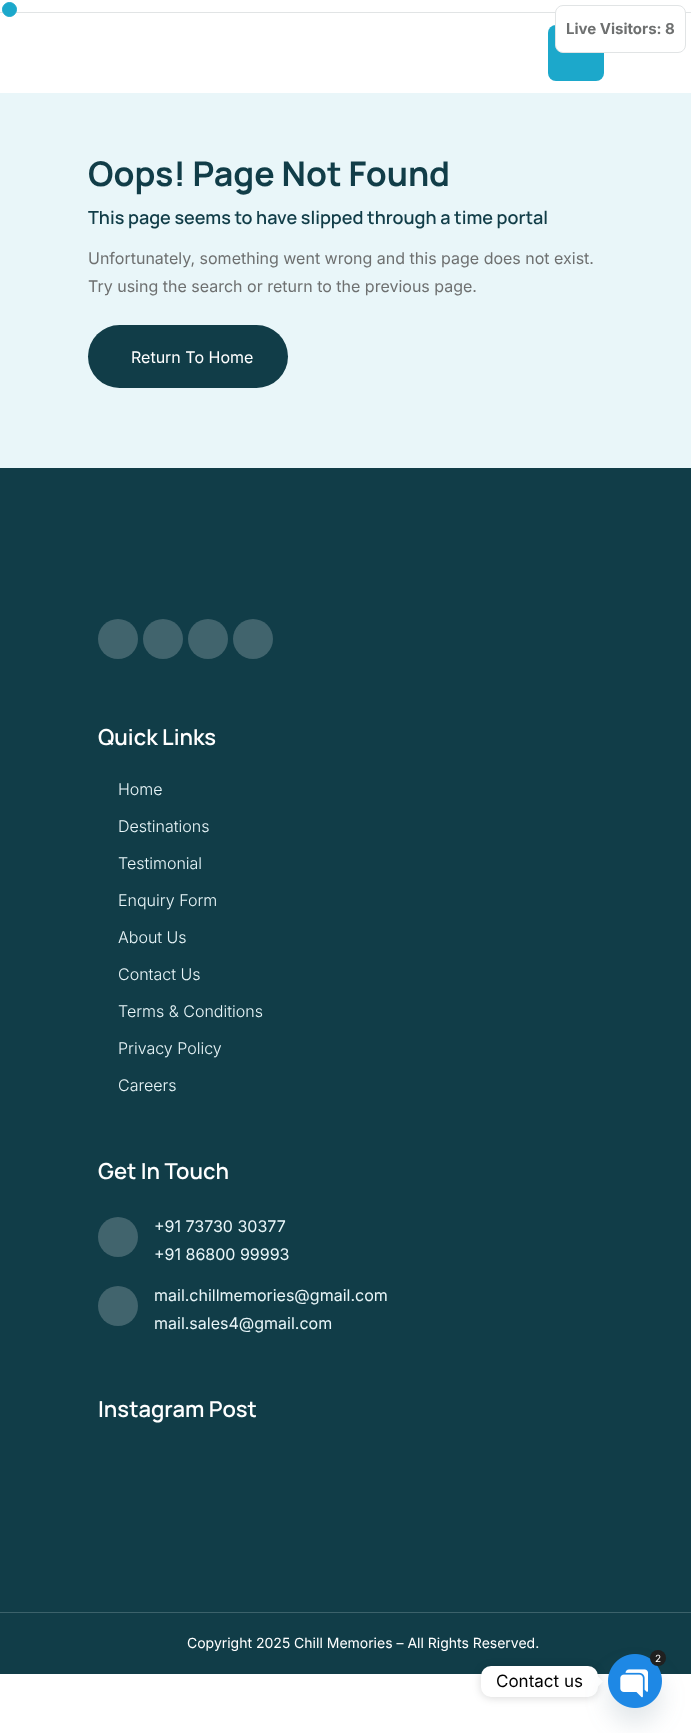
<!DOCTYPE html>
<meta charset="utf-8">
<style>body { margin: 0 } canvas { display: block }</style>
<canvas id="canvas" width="691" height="1733"></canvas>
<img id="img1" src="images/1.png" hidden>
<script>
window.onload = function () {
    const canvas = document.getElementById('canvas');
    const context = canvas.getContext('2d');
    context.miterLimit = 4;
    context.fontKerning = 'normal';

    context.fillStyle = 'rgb(255, 255, 255)';
    context.fillRect(0, 0, 691, 1733);
    context.fillStyle = 'rgb(225, 228, 229)';
    context.fillRect(0, 12, 691, 1);
    context.fillStyle = 'rgb(28, 168, 203)';
    context.beginPath();
    context.arc(9.5, 9.5, 7, 0, 2 * Math.PI);
    context.fill();
    context.strokeStyle = 'rgb(28, 168, 203)';
    context.stroke();
    context.beginPath();
    context.roundRect(548, 25, 56, 56, 8);
    context.fill();
    context.fillStyle = 'rgb(255, 255, 255)';
    context.beginPath();
    context.roundRect(555.5, 5.5, 130, 47, 7.5);
    context.fill();
    context.strokeStyle = 'rgb(225, 228, 229)';
    context.stroke();
    context.fillStyle = 'rgb(233, 246, 249)';
    context.fillRect(0, 93, 691, 375);
    context.fillStyle = 'rgb(17, 61, 72)';
    context.beginPath();
    context.roundRect(88, 325, 200, 63, 31.5);
    context.fill();
    context.fillRect(0, 468, 691, 1206);
    context.fillStyle = 'rgb(65, 100, 109)';
    context.beginPath();
    context.arc(118, 639, 20, 0, 2 * Math.PI);
    context.fill();
    context.beginPath();
    context.arc(163, 639, 20, 0, 2 * Math.PI);
    context.fill();
    context.beginPath();
    context.arc(208, 639, 20, 0, 2 * Math.PI);
    context.fill();
    context.beginPath();
    context.arc(253, 639, 20, 0, 2 * Math.PI);
    context.fill();
    context.beginPath();
    context.arc(118, 1237, 20, 0, 2 * Math.PI);
    context.fill();
    context.beginPath();
    context.arc(118, 1306, 20, 0, 2 * Math.PI);
    context.fill();
    context.fillStyle = 'rgb(60, 98, 107)';
    context.fillRect(0, 1612, 691, 1);
    context.fillStyle = 'rgba(0, 0, 0, 0.15)';
    context.filter = 'blur(4px)';
    context.beginPath();
    context.roundRect(481, 1667, 117, 31, 10);
    context.fill();
    context.filter = 'none';
    context.fillStyle = 'rgb(255, 255, 255)';
    context.beginPath();
    context.roundRect(481, 1666, 117, 31, 10);
    context.fill();
    context.beginPath();
    context.moveTo(598, 1686.5);
    context.lineTo(598, 1676.5);
    context.lineTo(603, 1681.5);
    context.closePath();
    context.fill();
    context.fillStyle = 'rgba(73, 104, 126, 0.16)';
    context.filter = 'blur(12px)';
    context.beginPath();
    context.roundRect(608, 1670, 54, 54, 27);
    context.fill();
    context.filter = 'none';
    context.drawImage(document.getElementById('img1'), 608, 1654, 54, 54);
    context.fillStyle = 'rgb(32, 32, 32)';
    context.beginPath();
    context.arc(658, 1658, 8, 0, 2 * Math.PI);
    context.fill();
    context.font = 'bold 15px Inter';
    context.fillStyle = 'rgb(110, 112, 112)';
    context.fillText('Live Visitors: 8', 566, 34);
    context.font = 'bold 34px Manrope';
    context.fillStyle = 'rgb(17, 61, 72)';
    context.fillText('Oops! Page Not Found', 88, 186);
    context.font = '600 18px Manrope';
    context.fillText('This page seems to have slipped through a time portal', 88, 224);
    context.font = '16px Inter';
    context.fillStyle = 'rgb(110, 112, 112)';
    context.fillText('Unfortunately, something went wrong and this page does not exist.', 88, 264);
    context.fillText('Try using the search or return to the previous page.', 88, 292);
    context.fillStyle = 'rgb(255, 255, 255)';
    context.fillText('Return To Home', 131, 363);
    context.font = '600 22px Manrope';
    context.fillText('Quick Links', 98, 745);
    context.font = '300 16px Inter';
    context.fillStyle = 'rgb(233, 246, 249)';
    context.fillText('Home', 118, 795);
    context.fillText('Destinations', 118, 832);
    context.fillText('Testimonial', 118, 869);
    context.fillText('Enquiry Form', 118, 906);
    context.fillText('About Us', 118, 943);
    context.fillText('Contact Us', 118, 980);
    context.fillText('Terms & Conditions', 118, 1017);
    context.fillText('Privacy Policy', 118, 1054);
    context.fillText('Careers', 118, 1091);
    context.font = '600 22px Manrope';
    context.fillStyle = 'rgb(255, 255, 255)';
    context.fillText('Get In Touch', 98, 1179);
    context.font = '16px Inter';
    context.fillStyle = 'rgb(233, 246, 249)';
    context.fillText('+91 73730 30377', 154, 1232);
    context.fillText('+91 86800 99993', 154, 1260);
    context.fillText('mail.chillmemories@gmail.com', 154, 1301);
    context.fillText('mail.sales4@gmail.com', 154, 1329);
    context.font = '600 22px Manrope';
    context.fillStyle = 'rgb(255, 255, 255)';
    context.fillText('Instagram Post', 98, 1417);
    context.font = '14px Inter';
    context.fillText('Copyright 2025 Chill Memories – All Rights Reserved.', 187, 1648);
    context.font = '10px Inter';
    context.fillText('2', 655, 1662);
    context.font = '17px Inter';
    context.fillStyle = 'rgb(0, 0, 0)';
    context.fillText('Contact us', 496, 1687);
};
</script>
